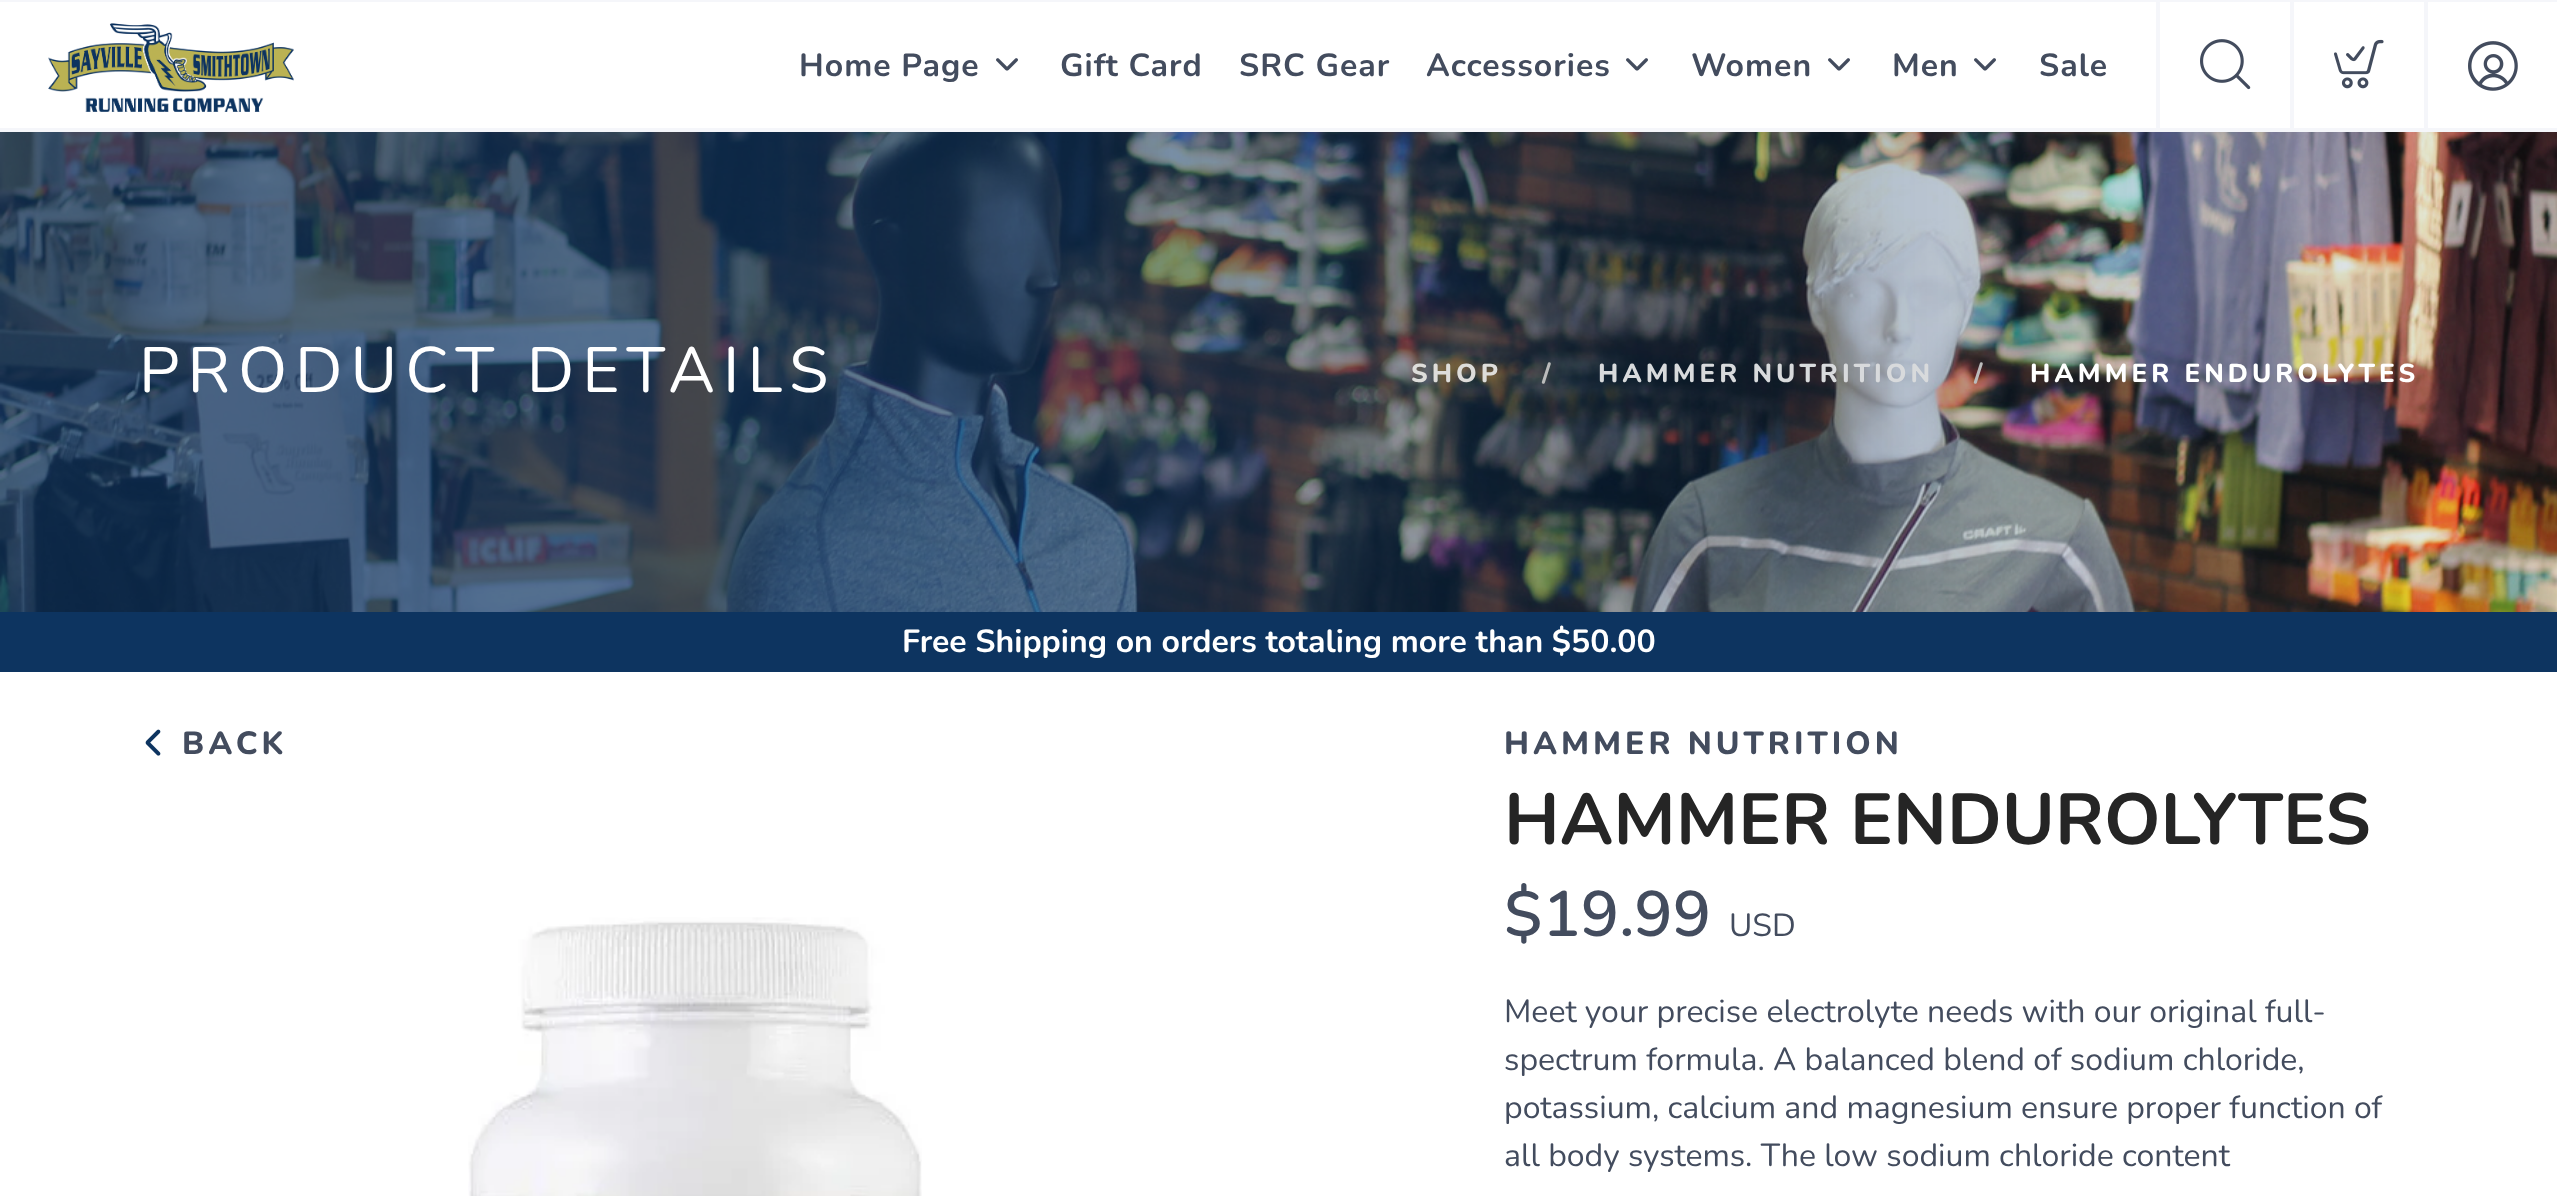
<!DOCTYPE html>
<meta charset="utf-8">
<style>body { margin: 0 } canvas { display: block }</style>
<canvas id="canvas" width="2557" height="1196"></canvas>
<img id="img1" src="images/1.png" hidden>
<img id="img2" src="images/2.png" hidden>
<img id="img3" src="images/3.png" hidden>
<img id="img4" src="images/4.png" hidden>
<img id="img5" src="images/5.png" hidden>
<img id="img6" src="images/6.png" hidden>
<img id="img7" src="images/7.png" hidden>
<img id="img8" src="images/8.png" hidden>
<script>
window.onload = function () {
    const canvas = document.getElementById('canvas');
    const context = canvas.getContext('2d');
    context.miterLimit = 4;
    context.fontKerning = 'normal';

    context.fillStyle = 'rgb(255, 255, 255)';
    context.fillRect(0, 0, 2557, 1196);
    context.fillStyle = 'rgb(245, 246, 250)';
    context.fillRect(0, 0, 2557, 2);
    context.fillRect(0, 128, 2557, 4);
    context.drawImage(document.getElementById('img1'), 48, 23, 246, 89);
    context.drawImage(document.getElementById('img2'), 996, 58, 22, 13);
    context.drawImage(document.getElementById('img2'), 1626, 58, 22, 13);
    context.drawImage(document.getElementById('img2'), 1828, 58, 22, 13);
    context.drawImage(document.getElementById('img2'), 1974, 58, 22, 13);
    context.fillRect(2156, 2, 4, 130);
    context.drawImage(document.getElementById('img3'), 2200, 39, 51, 51);
    context.fillRect(2290, 2, 4, 130);
    context.drawImage(document.getElementById('img4'), 2334, 39, 50, 50);
    context.fillRect(2424, 2, 4, 130);
    context.drawImage(document.getElementById('img5'), 2468, 41, 50, 50);
    context.drawImage(document.getElementById('img6'), 0, 132, 2557, 480);
    context.fillStyle = 'rgb(13, 52, 96)';
    context.fillRect(0, 612, 2557, 60);
    context.drawImage(document.getElementById('img7'), 145, 729, 16, 27);
    context.drawImage(document.getElementById('img8'), 468, 917, 454, 279);
    context.letterSpacing = '1px';
    context.font = 'bold 32px Nunito';
    context.fillStyle = 'rgb(67, 76, 94)';
    context.fillText('Home Page', 799, 76);
    context.fillText('Gift Card', 1060, 76);
    context.fillText('SRC Gear', 1239, 76);
    context.fillText('Accessories', 1426, 76);
    context.fillText('Women', 1691, 76);
    context.fillText('Men', 1892, 76);
    context.fillText('Sale', 2039, 76);
    context.letterSpacing = '8px';
    context.font = '64px Nunito';
    context.fillStyle = 'rgb(255, 255, 255)';
    context.fillText('PRODUCT DETAILS', 139, 392);
    context.letterSpacing = '4px';
    context.font = '800 26px Nunito';
    context.fillStyle = 'rgb(222, 221, 218)';
    context.fillText('SHOP', 1411, 382);
    context.fillStyle = 'rgb(187, 187, 187)';
    context.fillText('/', 1542, 382);
    context.fillStyle = 'rgb(216, 218, 220)';
    context.fillText('HAMMER NUTRITION', 1598, 382);
    context.fillStyle = 'rgb(187, 187, 187)';
    context.fillText('/', 1974, 382);
    context.fillStyle = 'rgb(255, 255, 255)';
    context.fillText('HAMMER ENDUROLYTES', 2030, 382);
    context.letterSpacing = '0px';
    context.font = 'bold 32px Nunito';
    context.fillText('Free Shipping on orders totaling more than $50.00', 902, 652);
    context.letterSpacing = '4px';
    context.font = '800 32px Nunito';
    context.fillStyle = 'rgb(67, 76, 94)';
    context.fillText('BACK', 182, 754);
    context.fillText('HAMMER NUTRITION', 1504, 754);
    context.letterSpacing = '0px';
    context.font = 'bold 72px Nunito';
    context.fillStyle = 'rgb(37, 37, 37)';
    context.fillText('HAMMER ENDUROLYTES', 1504, 844);
    context.font = '600 64px Nunito';
    context.fillStyle = 'rgb(67, 76, 94)';
    context.fillText('$19.99', 1504, 936);
    context.font = '32px Nunito';
    context.fillText('USD', 1729, 936);
    context.fillText('Meet your precise electrolyte needs with our original full-', 1504, 1022);
    context.fillText('spectrum formula. A balanced blend of sodium chloride,', 1504, 1070);
    context.fillText('potassium, calcium and magnesium ensure proper function of', 1504, 1118);
    context.fillText('all body systems. The low sodium chloride content', 1504, 1166);
};
</script>
